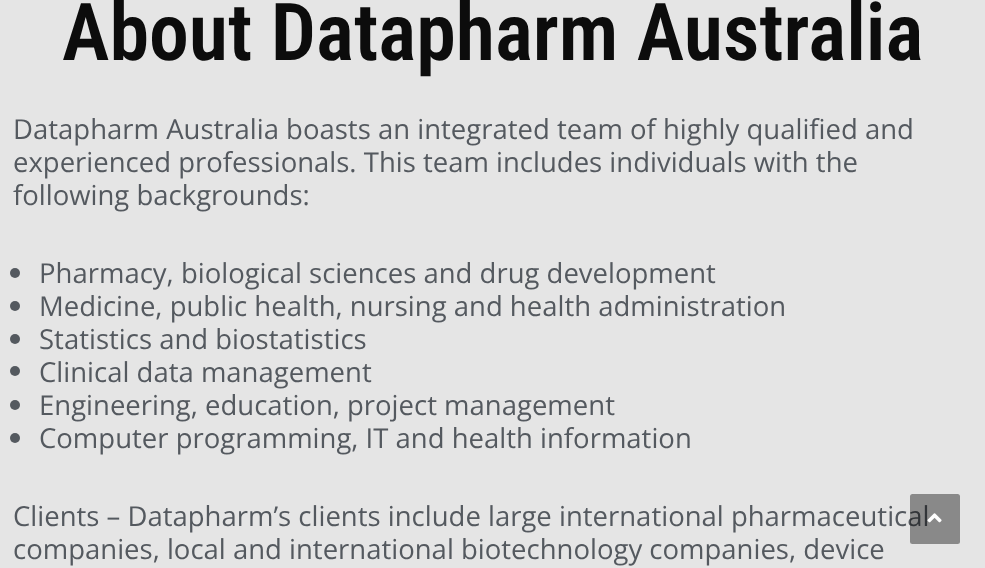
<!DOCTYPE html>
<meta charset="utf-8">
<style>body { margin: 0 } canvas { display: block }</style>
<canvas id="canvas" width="985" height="568"></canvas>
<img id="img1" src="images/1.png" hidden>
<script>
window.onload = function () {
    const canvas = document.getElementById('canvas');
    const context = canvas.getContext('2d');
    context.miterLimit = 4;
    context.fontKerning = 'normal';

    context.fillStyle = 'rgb(229, 229, 229)';
    context.fillRect(0, 0, 985, 568);
    context.fillStyle = 'rgb(84, 89, 95)';
    context.beginPath();
    context.arc(15, 273, 5, 0, 2 * Math.PI);
    context.fill();
    context.beginPath();
    context.arc(15, 306, 5, 0, 2 * Math.PI);
    context.fill();
    context.beginPath();
    context.arc(15, 339, 5, 0, 2 * Math.PI);
    context.fill();
    context.beginPath();
    context.arc(15, 371, 5, 0, 2 * Math.PI);
    context.fill();
    context.beginPath();
    context.arc(15, 405, 5, 0, 2 * Math.PI);
    context.fill();
    context.beginPath();
    context.arc(15, 438, 5, 0, 2 * Math.PI);
    context.fill();
    context.font = '600 80px Roboto Condensed';
    context.fillStyle = 'rgb(12, 12, 12)';
    context.fillText('About Datapharm Australia', 62, 60);
    context.font = '27.5px Open Sans';
    context.fillStyle = 'rgb(84, 89, 95)';
    context.fillText('Datapharm Australia boasts an integrated team of highly qualified and', 13, 139);
    context.fillText('experienced professionals. This team includes individuals with the', 13, 172);
    context.fillText('following backgrounds:', 13, 205);
    context.fillText('Pharmacy, biological sciences and drug development', 39, 283);
    context.fillText('Medicine, public health, nursing and health administration', 39, 316);
    context.fillText('Statistics and biostatistics', 39, 349);
    context.fillText('Clinical data management', 39, 382);
    context.fillText('Engineering, education, project management', 39, 415);
    context.fillText('Computer programming, IT and health information', 39, 448);
    context.fillText('Clients – Datapharm’s clients include large international pharmaceutical', 13, 526);
    context.fillText('companies, local and international biotechnology companies, device', 13, 559);
    context.fillStyle = 'rgba(0, 0, 0, 0.4)';
    context.beginPath();
    context.roundRect(910, 494, 50, 50, 2.5);
    context.fill();
    context.drawImage(document.getElementById('img1'), 927, 513, 15, 10);
};
</script>
